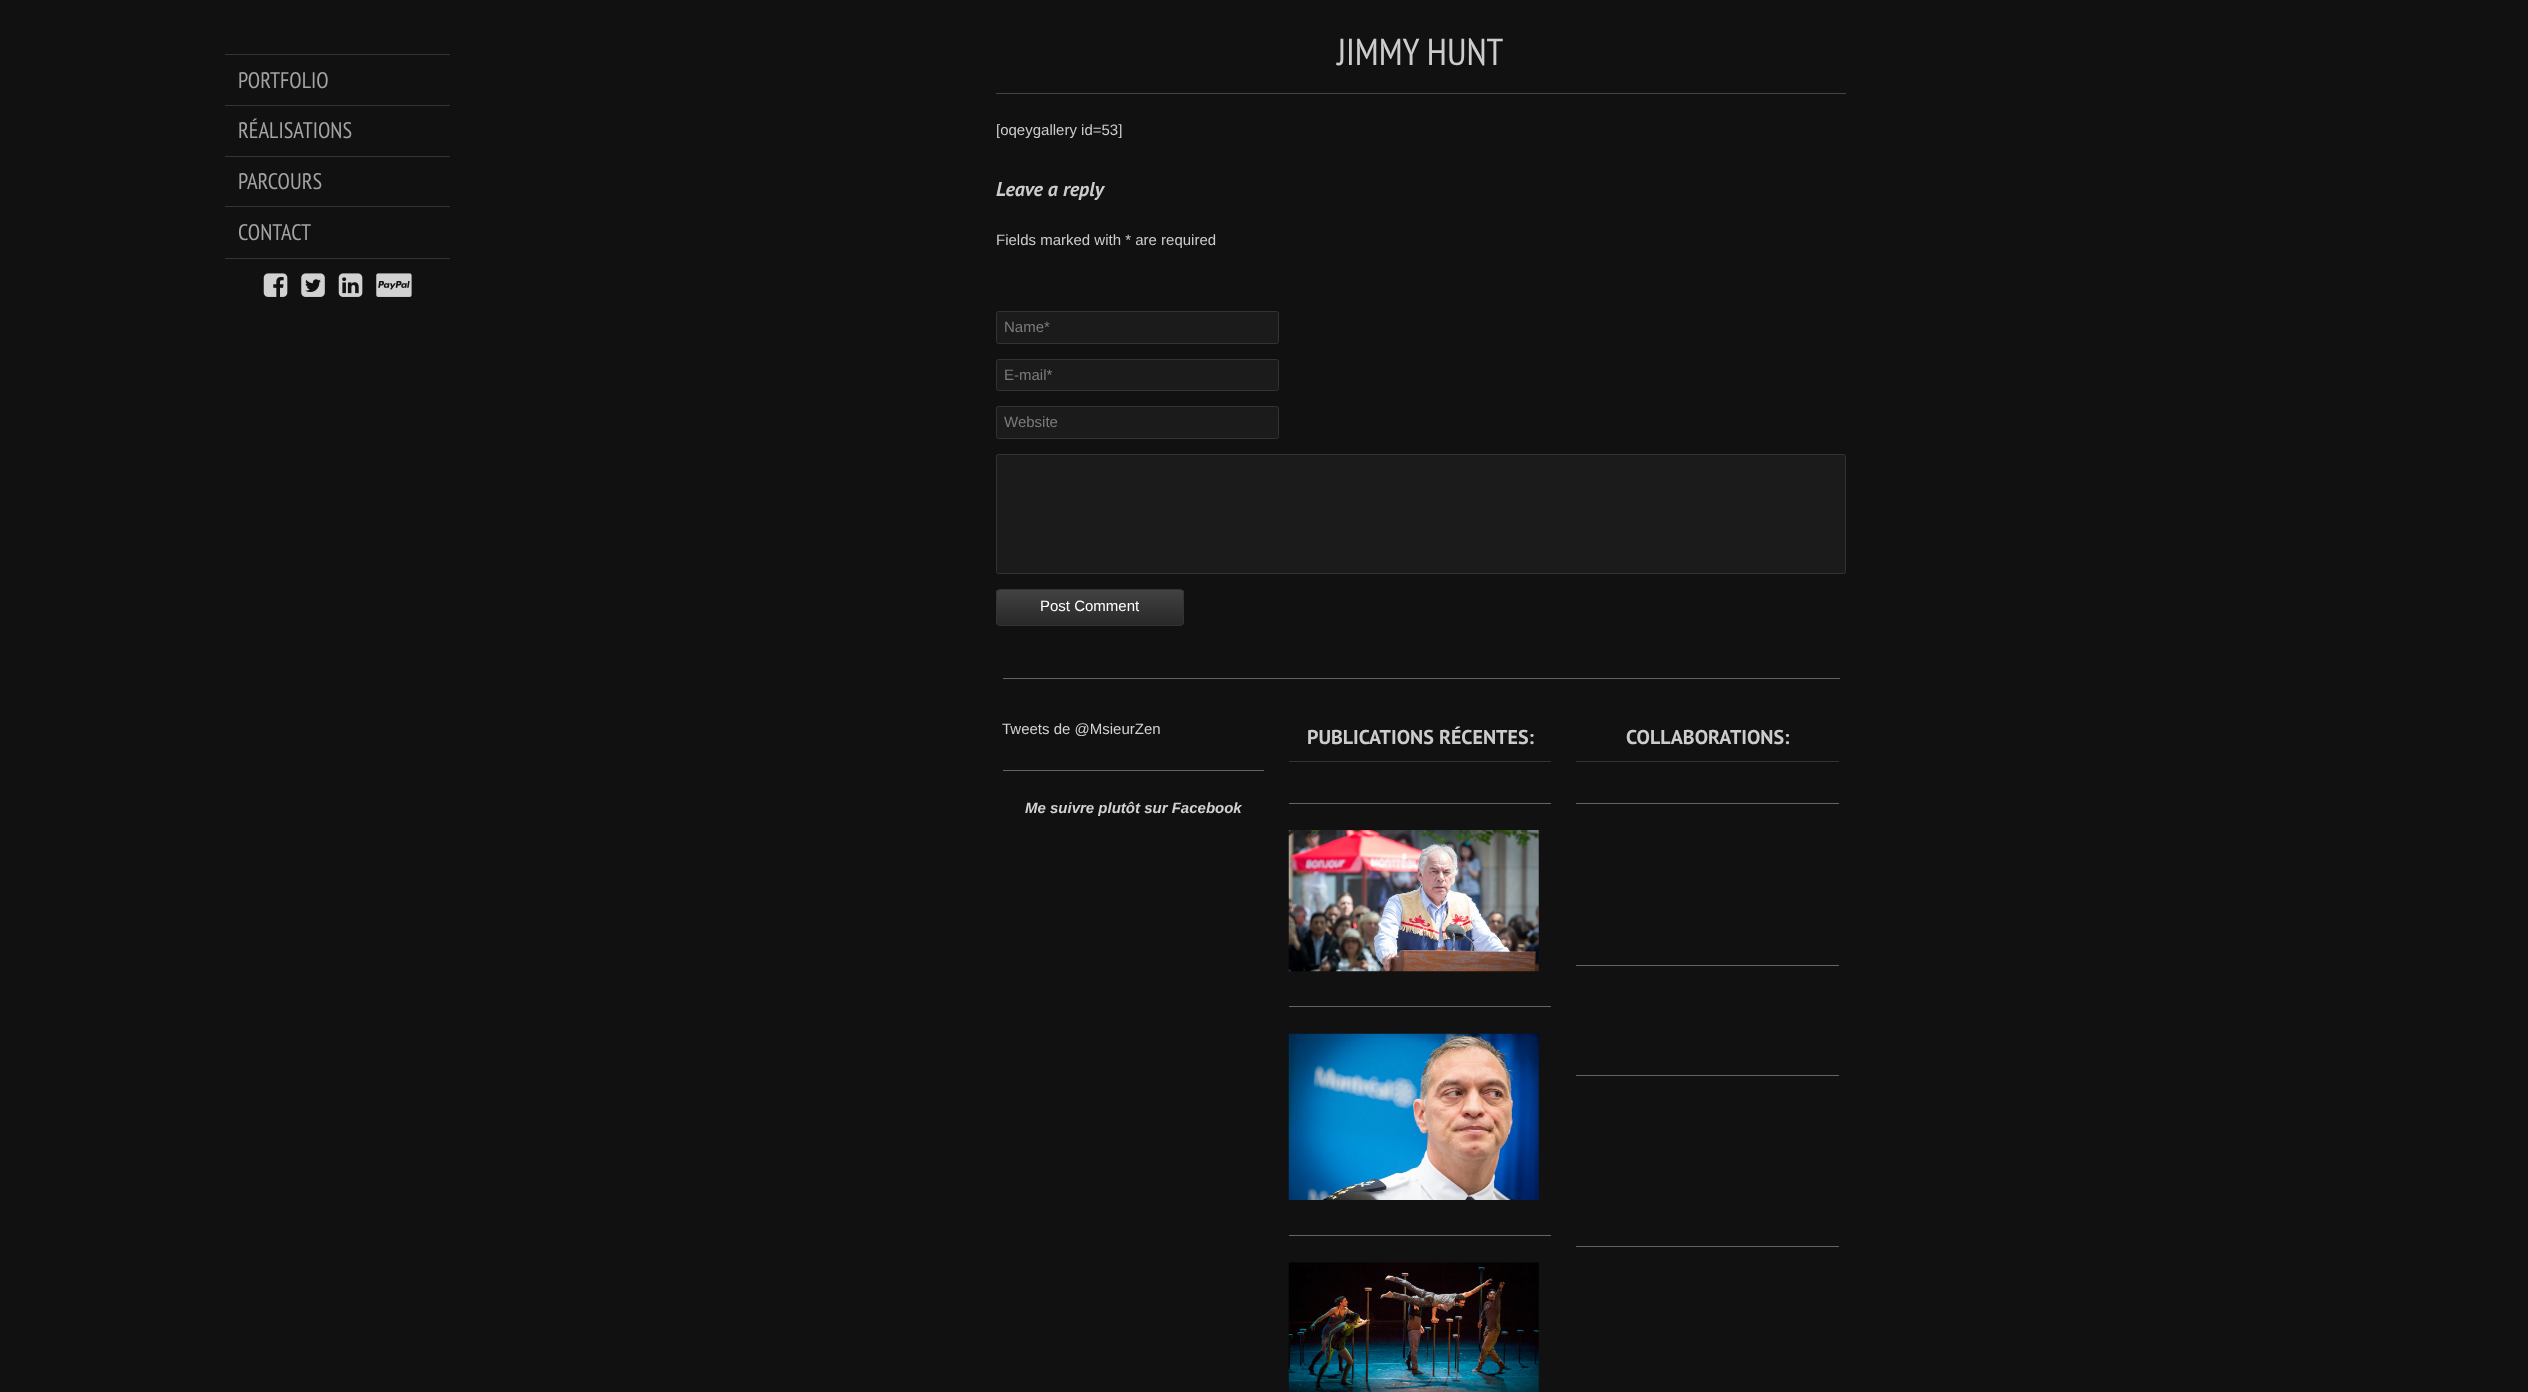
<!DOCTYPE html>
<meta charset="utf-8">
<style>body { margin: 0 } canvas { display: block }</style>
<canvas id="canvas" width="2528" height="1392"></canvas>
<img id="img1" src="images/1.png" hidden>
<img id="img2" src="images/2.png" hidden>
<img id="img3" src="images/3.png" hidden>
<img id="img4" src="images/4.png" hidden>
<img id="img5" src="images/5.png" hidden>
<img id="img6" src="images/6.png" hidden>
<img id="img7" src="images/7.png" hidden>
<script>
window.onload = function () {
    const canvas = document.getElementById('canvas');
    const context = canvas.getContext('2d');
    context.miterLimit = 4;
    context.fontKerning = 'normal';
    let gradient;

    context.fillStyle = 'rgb(17, 17, 17)';
    context.fillRect(0, 0, 2528, 1392);
    context.fillStyle = 'rgb(52, 52, 52)';
    context.fillRect(225, 54, 225, 1);
    context.fillRect(225, 105, 225, 1);
    context.fillRect(225, 156, 225, 1);
    context.fillRect(225, 206, 225, 1);
    context.fillRect(225, 258, 225, 1);
    context.drawImage(document.getElementById('img1'), 263, 273, 25, 24);
    context.drawImage(document.getElementById('img2'), 301, 273, 24, 24);
    context.drawImage(document.getElementById('img3'), 338, 273, 25, 24);
    context.drawImage(document.getElementById('img4'), 376, 273, 36, 24);
    context.fillStyle = 'rgb(67, 67, 67)';
    context.fillRect(996, 93, 850, 1);
    context.fillStyle = 'rgb(27, 27, 27)';
    context.beginPath();
    context.roundRect(996.5, 311.5, 282, 32, 2);
    context.fill();
    context.strokeStyle = 'rgb(51, 51, 51)';
    context.stroke();
    context.beginPath();
    context.roundRect(996.5, 359.5, 282, 31, 2);
    context.fill();
    context.stroke();
    context.beginPath();
    context.roundRect(996.5, 406.5, 282, 32, 2);
    context.fill();
    context.stroke();
    context.beginPath();
    context.roundRect(996.5, 454.5, 849, 119, 2);
    context.fill();
    context.stroke();
    context.save();
    context.beginPath();
    context.roundRect(996, 589, 188, 37, 4);
    context.clip();
    gradient = context.createLinearGradient(998, 590, 998, 625);
    gradient.addColorStop(0, 'rgb(66, 66, 66)');
    gradient.addColorStop(1, 'rgb(40, 40, 40)');
    context.fillStyle = gradient;
    context.fillRect(996, 590, 188, 35);
    context.restore();
    context.beginPath();
    context.roundRect(996.5, 589.5, 187, 36, 3.5);
    context.stroke();
    context.fillStyle = 'rgb(100, 100, 100)';
    context.fillRect(1003, 678, 837, 1);
    context.fillRect(1003, 770, 261, 1);
    context.fillStyle = 'rgb(51, 51, 51)';
    context.fillRect(1289, 761, 262, 1);
    context.fillStyle = 'rgb(100, 100, 100)';
    context.fillRect(1289, 803, 262, 1);
    context.drawImage(document.getElementById('img5'), 1288, 830, 251, 142);
    context.fillRect(1289, 1006, 262, 1);
    context.drawImage(document.getElementById('img6'), 1288, 1033, 251, 167);
    context.fillRect(1289, 1235, 262, 1);
    context.drawImage(document.getElementById('img7'), 1288, 1262, 251, 130);
    context.fillStyle = 'rgb(51, 51, 51)';
    context.fillRect(1576, 761, 263, 1);
    context.fillStyle = 'rgb(100, 100, 100)';
    context.fillRect(1576, 803, 263, 1);
    context.fillRect(1576, 965, 263, 1);
    context.fillRect(1576, 1075, 263, 1);
    context.fillRect(1576, 1246, 263, 1);
    context.font = '22.5px PT Sans Narrow';
    context.fillStyle = 'rgb(163, 163, 163)';
    context.fillText('PORTFOLIO', 238, 88);
    context.fillText('RÉALISATIONS', 238, 138);
    context.fillText('PARCOURS', 238, 189);
    context.fillText('CONTACT', 238, 240);
    context.font = '37.5px PT Sans Narrow';
    context.fillStyle = 'rgb(204, 204, 204)';
    context.fillText('JIMMY HUNT', 1337, 65);
    context.font = '15px Liberation Sans';
    context.fillText('[oqeygallery id=53]', 996, 135);
    context.font = 'italic bold 20px PT Sans';
    context.fillText('Leave a reply', 996, 196);
    context.font = '15px Liberation Sans';
    context.fillText('Fields marked with * are required', 996, 245);
    context.fillStyle = 'rgb(123, 123, 123)';
    context.fillText('Name*', 1004, 332);
    context.fillText('E-mail*', 1004, 380);
    context.fillText('Website', 1004, 427);
    context.fillStyle = 'rgb(255, 255, 255)';
    context.fillText('Post Comment', 1040, 611);
    context.fillStyle = 'rgb(210, 210, 210)';
    context.fillText('Tweets de @MsieurZen', 1002, 734);
    context.font = 'italic bold 15px Liberation Sans';
    context.fillText('Me suivre plutôt sur Facebook', 1025, 813);
    context.font = 'bold 20px PT Sans';
    context.fillStyle = 'rgb(204, 204, 204)';
    context.fillText('PUBLICATIONS RÉCENTES:', 1307, 744);
    context.fillText('COLLABORATIONS:', 1626, 744);
};
</script>
